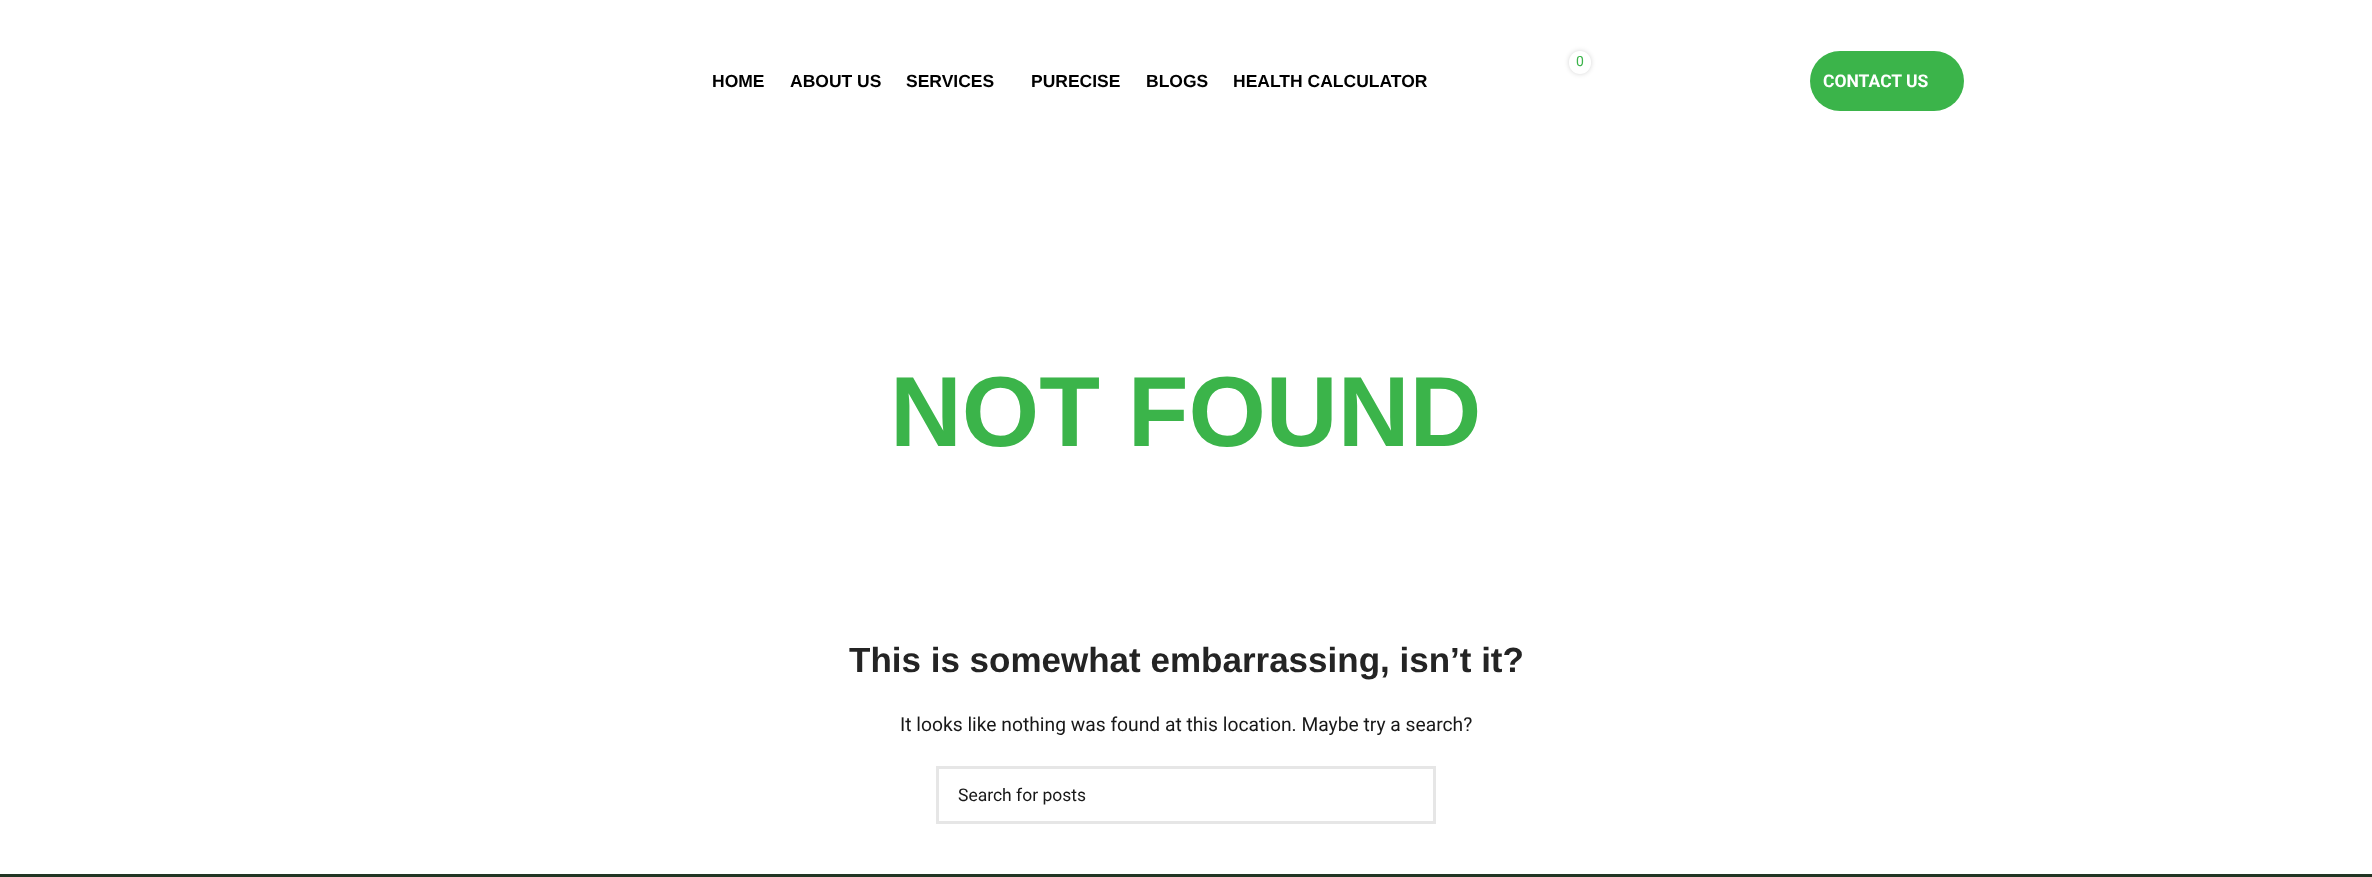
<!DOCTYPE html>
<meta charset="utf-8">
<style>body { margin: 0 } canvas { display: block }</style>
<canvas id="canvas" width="2372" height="877"></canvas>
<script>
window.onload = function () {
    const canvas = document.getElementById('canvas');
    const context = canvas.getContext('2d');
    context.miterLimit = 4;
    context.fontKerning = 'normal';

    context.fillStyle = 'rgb(255, 255, 255)';
    context.fillRect(0, 0, 2372, 877);
    context.fillStyle = 'rgba(0, 0, 0, 0.17)';
    context.filter = 'blur(2.5px)';
    context.beginPath();
    context.roundRect(1569, 51, 22, 23, 11);
    context.fill();
    context.filter = 'none';
    context.fillStyle = 'rgb(255, 255, 255)';
    context.beginPath();
    context.roundRect(1569, 51, 22, 23, 11);
    context.fill();
    context.fillStyle = 'rgb(59, 180, 74)';
    context.beginPath();
    context.roundRect(1810, 51, 154, 60, 30);
    context.fill();
    context.strokeStyle = 'rgb(230, 230, 230)';
    context.lineWidth = 3;
    context.strokeRect(937.5, 767.5, 497, 55);
    context.fillStyle = 'rgb(33, 53, 35)';
    context.fillRect(0, 874, 2372, 3);
    context.font = '14px Roboto';
    context.fillStyle = 'rgb(59, 180, 74)';
    context.fillText('0', 1576, 66);
    context.font = 'bold 17.5px Liberation Sans';
    context.fillStyle = 'rgb(0, 0, 0)';
    context.fillText('HOME', 712, 87);
    context.fillText('ABOUT US', 790, 87);
    context.fillText('SERVICES', 906, 87);
    context.fillText('PURECISE', 1031, 87);
    context.fillText('BLOGS', 1146, 87);
    context.fillText('HEALTH CALCULATOR', 1233, 87);
    context.font = 'bold 17.5px Roboto';
    context.fillStyle = 'rgb(255, 255, 255)';
    context.fillText('CONTACT US', 1823, 87);
    context.font = 'bold 99.5px Liberation Sans';
    context.fillStyle = 'rgb(59, 180, 74)';
    context.fillText('NOT FOUND', 890, 446);
    context.font = 'bold 35px Liberation Sans';
    context.fillStyle = 'rgb(36, 36, 36)';
    context.fillText('This is somewhat embarrassing, isn’t it?', 849, 672);
    context.font = '19.25px Roboto';
    context.fillStyle = 'rgb(24, 24, 24)';
    context.fillText('It looks like nothing was found at this location. Maybe try a search?', 900, 731);
    context.font = '17.5px Roboto';
    context.fillText('Search for posts', 958, 801);
};
</script>
